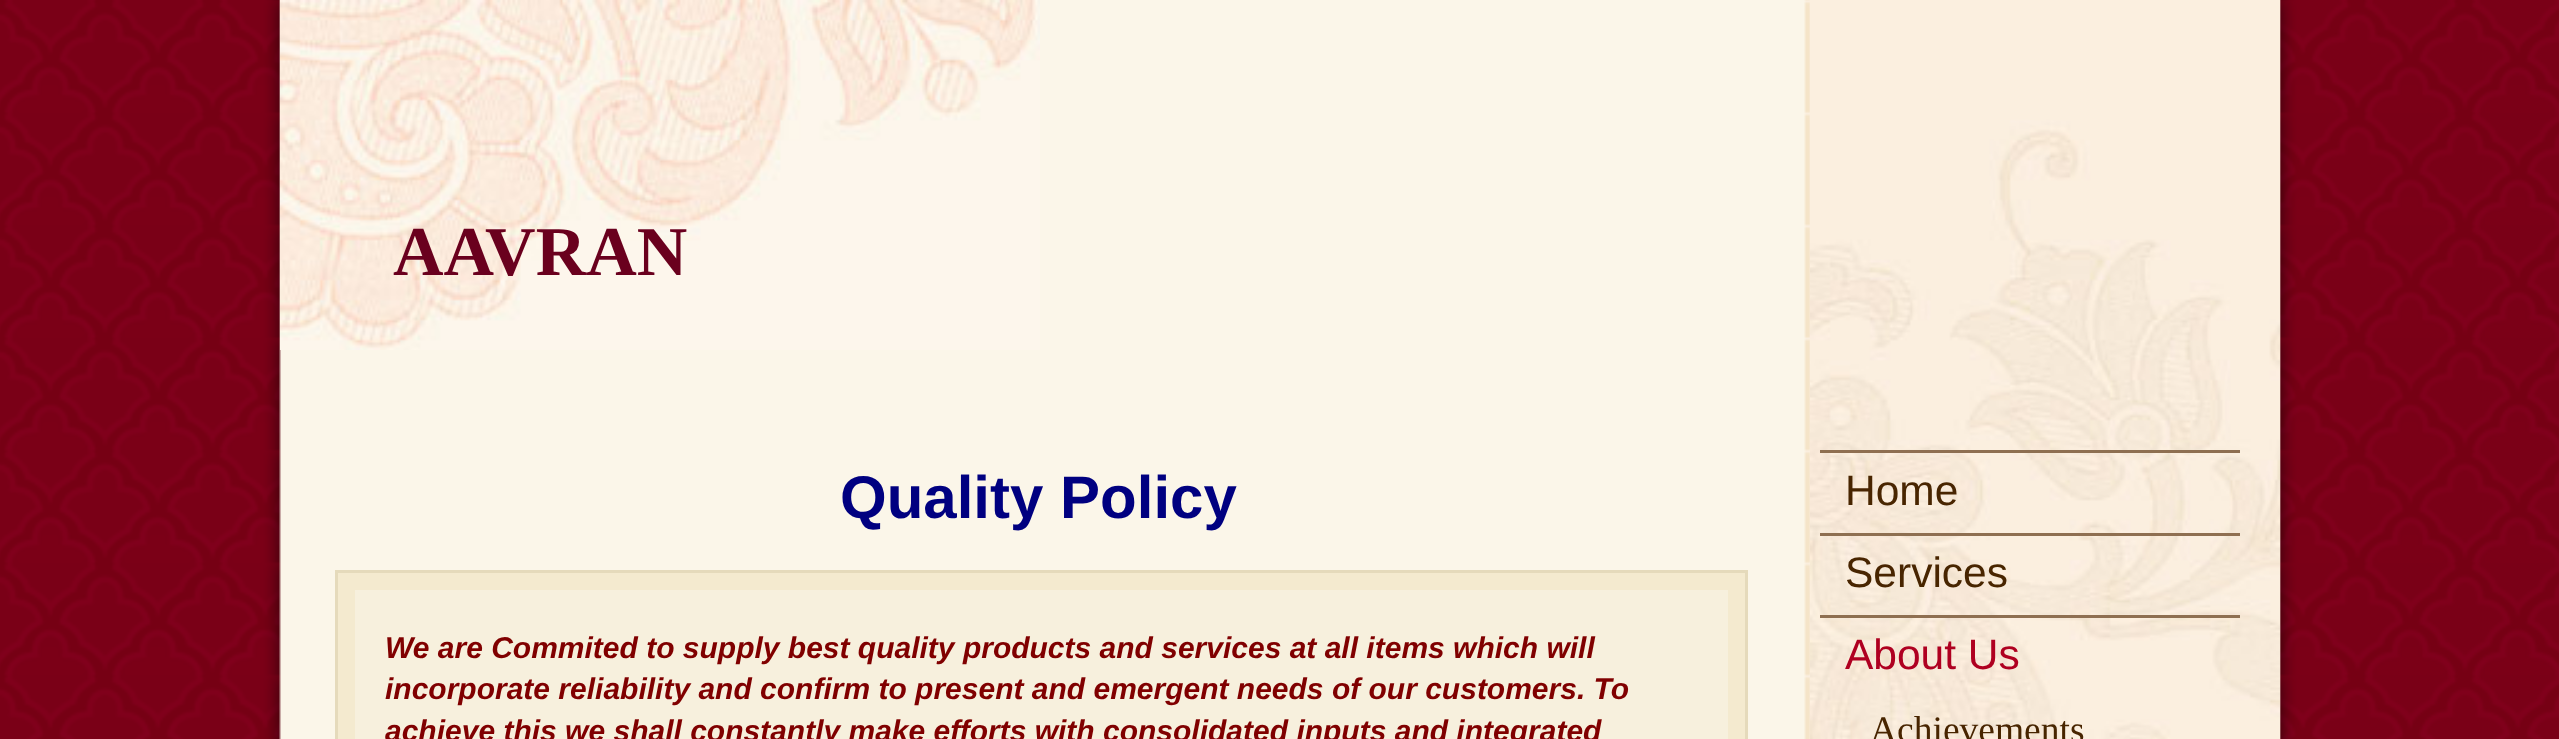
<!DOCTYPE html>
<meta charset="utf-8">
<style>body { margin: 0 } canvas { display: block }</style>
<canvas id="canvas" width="2559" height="739"></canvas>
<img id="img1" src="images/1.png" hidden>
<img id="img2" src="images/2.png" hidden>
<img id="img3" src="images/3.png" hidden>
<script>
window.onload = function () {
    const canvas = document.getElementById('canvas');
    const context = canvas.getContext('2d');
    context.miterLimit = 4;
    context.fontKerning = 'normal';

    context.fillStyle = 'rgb(255, 255, 255)';
    context.fillRect(0, 0, 2559, 739);
    context.drawImage(document.getElementById('img1'), 0, 0, 2559, 739);
    context.drawImage(document.getElementById('img2'), 1810, 0, 470, 739);
    context.drawImage(document.getElementById('img3'), 280, 0, 760, 350);
    context.fillStyle = 'rgb(244, 234, 207)';
    context.beginPath();
    context.rect(336.5, 571.5, 1410, 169);
    context.fill();
    context.strokeStyle = 'rgb(229, 218, 187)';
    context.lineWidth = 3;
    context.stroke();
    context.fillStyle = 'rgb(247, 240, 221)';
    context.fillRect(355, 590, 1373, 149);
    context.fillStyle = 'rgb(142, 111, 81)';
    context.fillRect(1820, 450, 420, 3);
    context.fillRect(1820, 533, 420, 3);
    context.fillRect(1820, 615, 420, 3);
    context.font = 'bold 70px Liberation Serif';
    context.fillStyle = 'rgb(106, 0, 30)';
    context.fillText('AAVRAN', 393, 275);
    context.font = 'bold 60px Liberation Sans';
    context.fillStyle = 'rgb(0, 0, 128)';
    context.fillText('Quality Policy', 840, 518);
    context.font = 'italic bold 30px Liberation Sans';
    context.fillStyle = 'rgb(128, 0, 0)';
    context.fillText('We are Commited to supply best quality products and services at all items which will', 385, 658);
    context.fillText('incorporate reliability and confirm to present and emergent needs of our customers. To', 385, 699);
    context.fillText('achieve this we shall constantly make efforts with consolidated inputs and integrated', 385, 741);
    context.font = '42.5px Liberation Sans';
    context.fillStyle = 'rgb(72, 37, 0)';
    context.fillText('Home', 1845, 505);
    context.fillText('Services', 1845, 587);
    context.fillStyle = 'rgb(175, 0, 33)';
    context.fillText('About Us', 1845, 669);
    context.font = '37.5px Liberation Serif';
    context.fillStyle = 'rgb(72, 37, 0)';
    context.fillText('Achievements', 1870, 742);
};
</script>
